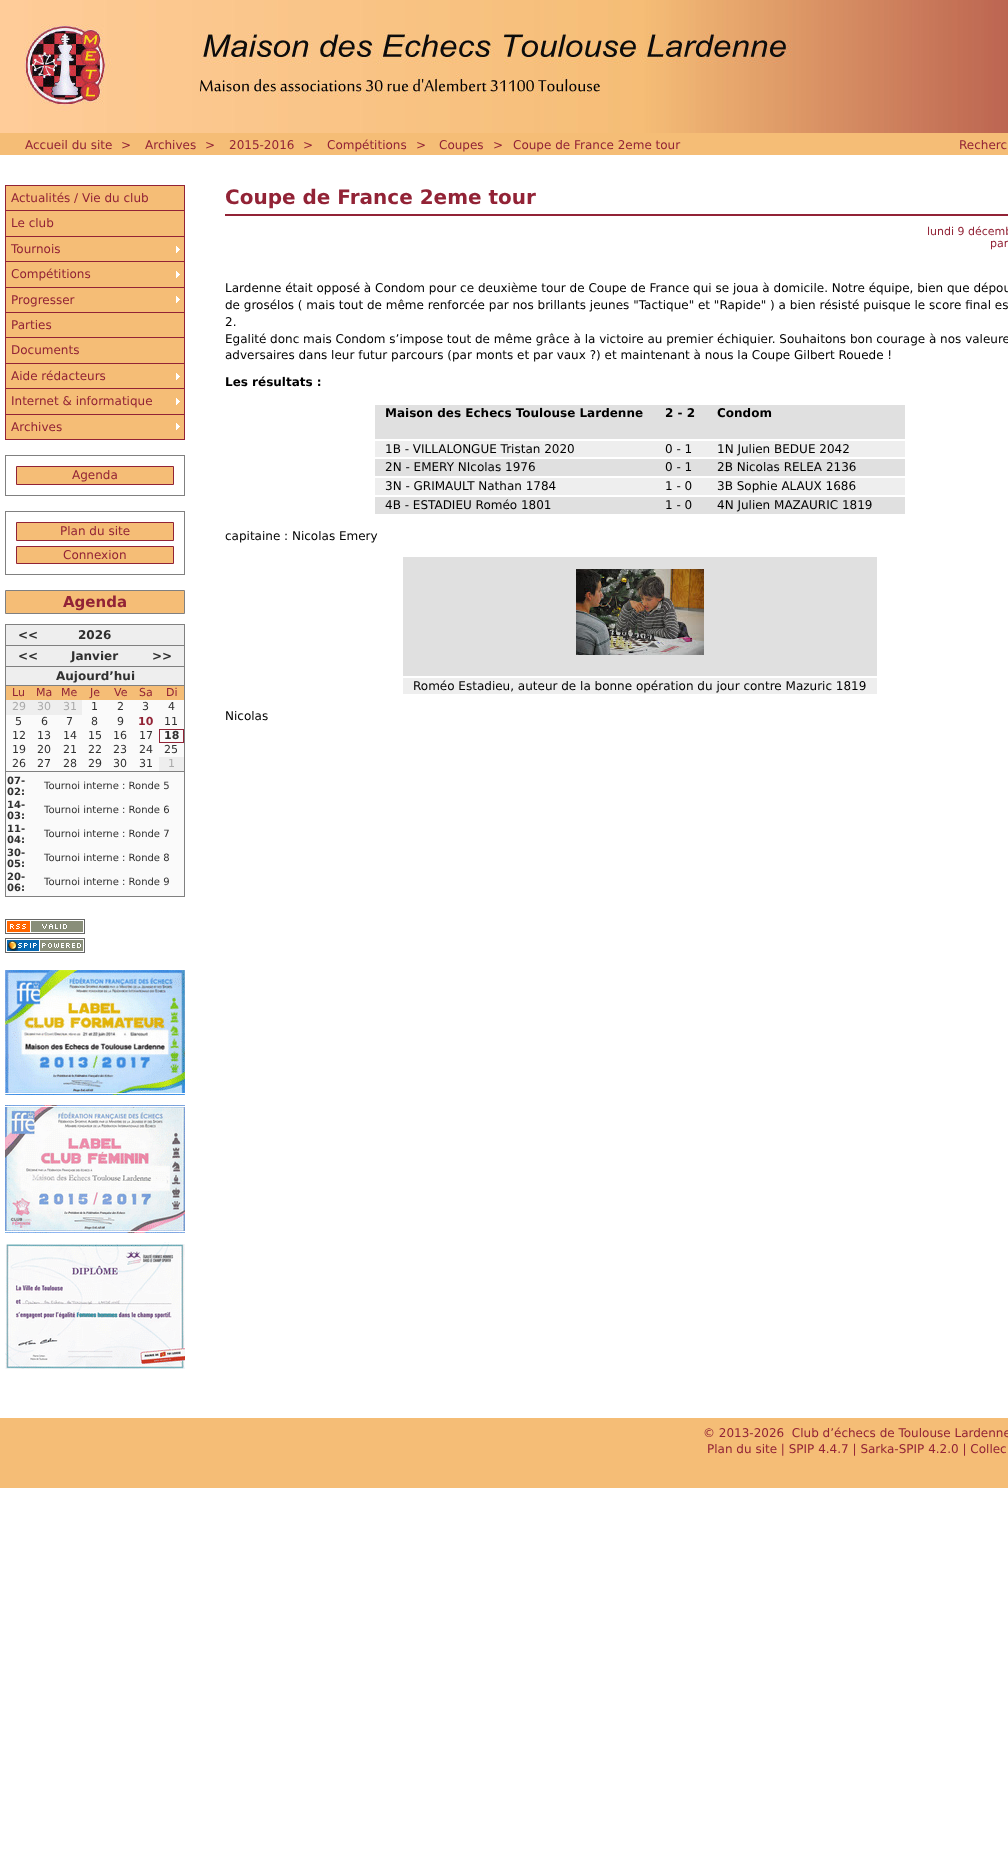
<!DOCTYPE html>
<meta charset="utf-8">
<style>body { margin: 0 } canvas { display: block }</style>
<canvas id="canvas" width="1008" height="1874"></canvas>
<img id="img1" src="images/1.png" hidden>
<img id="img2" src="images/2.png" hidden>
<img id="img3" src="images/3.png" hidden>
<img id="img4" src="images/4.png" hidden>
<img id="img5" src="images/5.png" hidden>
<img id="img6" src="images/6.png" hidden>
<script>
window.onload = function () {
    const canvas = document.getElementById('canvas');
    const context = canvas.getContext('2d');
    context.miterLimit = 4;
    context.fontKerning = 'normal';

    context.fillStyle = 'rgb(255, 255, 255)';
    context.fillRect(0, 0, 1008, 1874);
    context.fillStyle = 'rgb(255, 204, 153)';
    context.fillRect(0, 0, 24, 133);
    context.drawImage(document.getElementById('img1'), 24, 0, 984, 133);
    context.fillStyle = 'rgb(245, 189, 118)';
    context.fillRect(0, 133, 1008, 22);
    context.fillRect(6, 186, 178, 177);
    context.fillStyle = 'rgb(146, 35, 54)';
    context.fillRect(5, 185, 180, 1);
    context.fillRect(184, 185, 1, 255);
    context.fillRect(5, 185, 1, 255);
    context.fillRect(6, 210, 178, 1);
    context.fillRect(6, 236, 178, 1);
    context.fillRect(6, 261, 178, 1);
    context.drawImage(document.getElementById('img2'), 176, 246, 4, 7);
    context.fillRect(6, 287, 178, 1);
    context.drawImage(document.getElementById('img2'), 176, 271, 4, 7);
    context.fillRect(6, 312, 178, 1);
    context.drawImage(document.getElementById('img2'), 176, 296, 4, 7);
    context.fillRect(6, 337, 178, 1);
    context.fillRect(6, 363, 178, 1);
    context.fillRect(6, 388, 178, 1);
    context.fillStyle = 'rgb(245, 189, 118)';
    context.fillRect(6, 364, 178, 24);
    context.drawImage(document.getElementById('img2'), 176, 373, 4, 7);
    context.fillStyle = 'rgb(146, 35, 54)';
    context.fillRect(6, 414, 178, 1);
    context.fillStyle = 'rgb(245, 189, 118)';
    context.fillRect(6, 389, 178, 25);
    context.drawImage(document.getElementById('img2'), 176, 398, 4, 7);
    context.fillStyle = 'rgb(146, 35, 54)';
    context.fillRect(6, 439, 178, 1);
    context.fillStyle = 'rgb(245, 189, 118)';
    context.fillRect(6, 415, 178, 24);
    context.drawImage(document.getElementById('img2'), 176, 423, 4, 7);
    context.strokeStyle = 'rgb(128, 128, 128)';
    context.strokeRect(5.5, 455.5, 179, 40);
    context.beginPath();
    context.rect(16.5, 466.5, 157, 18);
    context.fill();
    context.strokeStyle = 'rgb(146, 35, 54)';
    context.stroke();
    context.strokeStyle = 'rgb(128, 128, 128)';
    context.strokeRect(5.5, 511.5, 179, 63);
    context.beginPath();
    context.rect(16.5, 522.5, 157, 18);
    context.fill();
    context.strokeStyle = 'rgb(146, 35, 54)';
    context.stroke();
    context.beginPath();
    context.rect(16.5, 546.5, 157, 17);
    context.fill();
    context.stroke();
    context.beginPath();
    context.rect(5.5, 590.5, 179, 23);
    context.fill();
    context.strokeStyle = 'rgb(128, 128, 128)';
    context.stroke();
    context.fillStyle = 'rgb(250, 250, 250)';
    context.fillRect(6, 700, 178, 196);
    context.strokeRect(5.5, 624.5, 179, 272);
    context.fillStyle = 'rgb(238, 238, 238)';
    context.fillRect(6, 625, 178, 20);
    context.fillStyle = 'rgb(128, 128, 128)';
    context.fillRect(6, 645, 178, 1);
    context.fillStyle = 'rgb(238, 238, 238)';
    context.fillRect(6, 646, 178, 39);
    context.fillStyle = 'rgb(128, 128, 128)';
    context.fillRect(6, 666, 178, 1);
    context.fillRect(6, 685, 178, 1);
    context.fillStyle = 'rgb(245, 189, 118)';
    context.fillRect(6, 686, 178, 14);
    context.fillStyle = 'rgb(238, 238, 238)';
    context.fillRect(6, 700, 76, 15);
    context.strokeStyle = 'rgb(146, 35, 54)';
    context.strokeRect(159.5, 729.5, 24, 13);
    context.fillRect(159, 757, 25, 14);
    context.fillStyle = 'rgb(128, 128, 128)';
    context.fillRect(6, 771, 178, 1);
    context.drawImage(document.getElementById('img3'), 5, 919, 80, 15);
    context.drawImage(document.getElementById('img4'), 5, 938, 80, 15);
    context.drawImage(document.getElementById('img5'), 5, 970, 180, 399);
    context.fillStyle = 'rgb(146, 35, 54)';
    context.fillRect(225, 214, 783, 2);
    context.fillStyle = 'rgb(224, 224, 224)';
    context.fillRect(375, 405, 530, 34);
    context.fillStyle = 'rgb(238, 238, 238)';
    context.fillRect(375, 441, 530, 16);
    context.fillStyle = 'rgb(224, 224, 224)';
    context.fillRect(375, 459, 530, 17);
    context.fillStyle = 'rgb(238, 238, 238)';
    context.fillRect(375, 478, 530, 17);
    context.fillStyle = 'rgb(224, 224, 224)';
    context.fillRect(375, 497, 530, 17);
    context.fillRect(403, 557, 474, 119);
    context.drawImage(document.getElementById('img6'), 576, 569, 128, 86);
    context.fillStyle = 'rgb(238, 238, 238)';
    context.fillRect(403, 678, 474, 16);
    context.fillStyle = 'rgb(245, 189, 118)';
    context.fillRect(0, 1418, 1008, 70);
    context.font = '12px DejaVu Sans';
    context.fillStyle = 'rgb(146, 35, 54)';
    context.fillText('Accueil du site', 25, 149);
    context.fillText('>', 121, 149);
    context.fillText('Archives', 145, 149);
    context.fillText('>', 205, 149);
    context.fillText('2015-2016', 229, 149);
    context.fillText('>', 303, 149);
    context.fillText('Compétitions', 327, 149);
    context.fillText('>', 416, 149);
    context.fillText('Coupes', 439, 149);
    context.fillText('>', 493, 149);
    context.fillText('Coupe de France 2eme tour', 513, 149);
    context.fillText('Recherc', 959, 149);
    context.fillText('Actualités / Vie du club', 11, 202);
    context.fillText('Le club', 11, 227);
    context.fillText('Tournois', 11, 253);
    context.fillText('Compétitions', 11, 278);
    context.fillText('Progresser', 11, 304);
    context.fillText('Parties', 11, 329);
    context.fillText('Documents', 11, 354);
    context.fillText('Aide rédacteurs', 11, 380);
    context.fillText('Internet & informatique', 11, 405);
    context.fillText('Archives', 11, 431);
    context.fillText('Agenda', 72, 479);
    context.fillText('Plan du site', 60, 535);
    context.fillText('Connexion', 63, 559);
    context.font = 'bold 15px DejaVu Sans';
    context.fillText('Agenda', 63, 607);
    context.font = 'bold 12px DejaVu Sans';
    context.fillStyle = 'rgb(48, 48, 48)';
    context.fillText('<<', 18, 639);
    context.fillText('2026', 78, 639);
    context.fillText('<<', 18, 660);
    context.fillText('Janvier', 71, 660);
    context.fillText('>>', 152, 660);
    context.fillText('Aujourd’hui', 56, 680);
    context.font = '11px DejaVu Sans';
    context.fillStyle = 'rgb(146, 35, 54)';
    context.fillText('Lu', 12, 696);
    context.fillText('Ma', 36, 696);
    context.fillText('Me', 61, 696);
    context.fillText('Je', 90, 696);
    context.fillText('Ve', 114, 696);
    context.fillText('Sa', 139, 696);
    context.fillText('Di', 166, 696);
    context.fillStyle = 'rgb(170, 170, 170)';
    context.fillText('29', 12, 710);
    context.fillText('30', 37, 710);
    context.fillText('31', 63, 710);
    context.fillStyle = 'rgb(48, 48, 48)';
    context.fillText('1', 91, 710);
    context.fillText('2', 117, 710);
    context.fillText('3', 142, 710);
    context.fillText('4', 168, 710);
    context.fillText('5', 15, 725);
    context.fillText('6', 41, 725);
    context.fillText('7', 66, 725);
    context.fillText('8', 91, 725);
    context.fillText('9', 117, 725);
    context.font = 'bold 11px DejaVu Sans';
    context.fillStyle = 'rgb(146, 35, 54)';
    context.fillText('10', 138, 725);
    context.font = '11px DejaVu Sans';
    context.fillStyle = 'rgb(48, 48, 48)';
    context.fillText('11', 164, 725);
    context.fillText('12', 12, 739);
    context.fillText('13', 37, 739);
    context.fillText('14', 63, 739);
    context.fillText('15', 88, 739);
    context.fillText('16', 113, 739);
    context.fillText('17', 139, 739);
    context.font = 'bold 11px DejaVu Sans';
    context.fillText('18', 164, 739);
    context.font = '11px DejaVu Sans';
    context.fillText('19', 12, 753);
    context.fillText('20', 37, 753);
    context.fillText('21', 63, 753);
    context.fillText('22', 88, 753);
    context.fillText('23', 113, 753);
    context.fillText('24', 139, 753);
    context.fillText('25', 164, 753);
    context.fillText('26', 12, 767);
    context.fillText('27', 37, 767);
    context.fillText('28', 63, 767);
    context.fillText('29', 88, 767);
    context.fillText('30', 113, 767);
    context.fillText('31', 139, 767);
    context.fillStyle = 'rgb(170, 170, 170)';
    context.fillText('1', 168, 767);
    context.font = 'bold 10px DejaVu Sans';
    context.fillStyle = 'rgb(48, 48, 48)';
    context.fillText('07-', 7, 784);
    context.fillText('02:', 7, 795);
    context.font = '10px DejaVu Sans';
    context.fillText('Tournoi interne : Ronde 5', 44, 789);
    context.font = 'bold 10px DejaVu Sans';
    context.fillText('14-', 7, 808);
    context.fillText('03:', 7, 819);
    context.font = '10px DejaVu Sans';
    context.fillText('Tournoi interne : Ronde 6', 44, 813);
    context.font = 'bold 10px DejaVu Sans';
    context.fillText('11-', 7, 832);
    context.fillText('04:', 7, 843);
    context.font = '10px DejaVu Sans';
    context.fillText('Tournoi interne : Ronde 7', 44, 837);
    context.font = 'bold 10px DejaVu Sans';
    context.fillText('30-', 7, 856);
    context.fillText('05:', 7, 867);
    context.font = '10px DejaVu Sans';
    context.fillText('Tournoi interne : Ronde 8', 44, 861);
    context.font = 'bold 10px DejaVu Sans';
    context.fillText('20-', 7, 880);
    context.fillText('06:', 7, 891);
    context.font = '10px DejaVu Sans';
    context.fillText('Tournoi interne : Ronde 9', 44, 885);
    context.font = 'bold 20px DejaVu Sans';
    context.fillStyle = 'rgb(146, 35, 54)';
    context.fillText('Coupe de France 2eme tour', 225, 204);
    context.font = '11px DejaVu Sans';
    context.fillText('lundi 9 décemb', 927, 235);
    context.fillText('par', 990, 247);
    context.font = '12px DejaVu Sans';
    context.fillStyle = 'rgb(0, 0, 0)';
    context.fillText('Lardenne était opposé à Condom pour ce deuxième tour de Coupe de France qui se joua à domicile. Notre équipe, bien que dépou', 225, 292);
    context.fillText('de grosélos ( mais tout de même renforcée par nos brillants jeunes "Tactique" et "Rapide" ) a bien résisté puisque le score final es', 225, 309);
    context.fillText('2.', 225, 326);
    context.fillText('Egalité donc mais Condom s’impose tout de même grâce à la victoire au premier échiquier. Souhaitons bon courage à nos valeure', 225, 343);
    context.fillText('adversaires dans leur futur parcours (par monts et par vaux ?) et maintenant à nous la Coupe Gilbert Rouede !', 225, 359);
    context.font = 'bold 12px DejaVu Sans';
    context.fillText('Les résultats :', 225, 386);
    context.fillText('Maison des Echecs Toulouse Lardenne', 385, 417);
    context.fillText('2 - 2', 665, 417);
    context.fillText('Condom', 717, 417);
    context.font = '12px DejaVu Sans';
    context.fillText('1B - VILLALONGUE Tristan 2020', 385, 453);
    context.fillText('0 - 1', 665, 453);
    context.fillText('1N Julien BEDUE 2042', 717, 453);
    context.fillText('2N - EMERY NIcolas 1976', 385, 471);
    context.fillText('0 - 1', 665, 471);
    context.fillText('2B Nicolas RELEA 2136', 717, 471);
    context.fillText('3N - GRIMAULT Nathan 1784', 385, 490);
    context.fillText('1 - 0', 665, 490);
    context.fillText('3B Sophie ALAUX 1686', 717, 490);
    context.fillText('4B - ESTADIEU Roméo 1801', 385, 509);
    context.fillText('1 - 0', 665, 509);
    context.fillText('4N Julien MAZAURIC 1819', 717, 509);
    context.fillText('capitaine : Nicolas Emery', 225, 540);
    context.fillText('Roméo Estadieu, auteur de la bonne opération du jour contre Mazuric 1819', 413, 690);
    context.fillText('Nicolas', 225, 720);
    context.fillStyle = 'rgb(146, 35, 54)';
    context.fillText('© 2013-2026  Club d’échecs de Toulouse Lardenne', 703, 1437);
    context.fillText('Plan du site | SPIP 4.4.7 | Sarka-SPIP 4.2.0 | Collec', 707, 1453);
};
</script>
